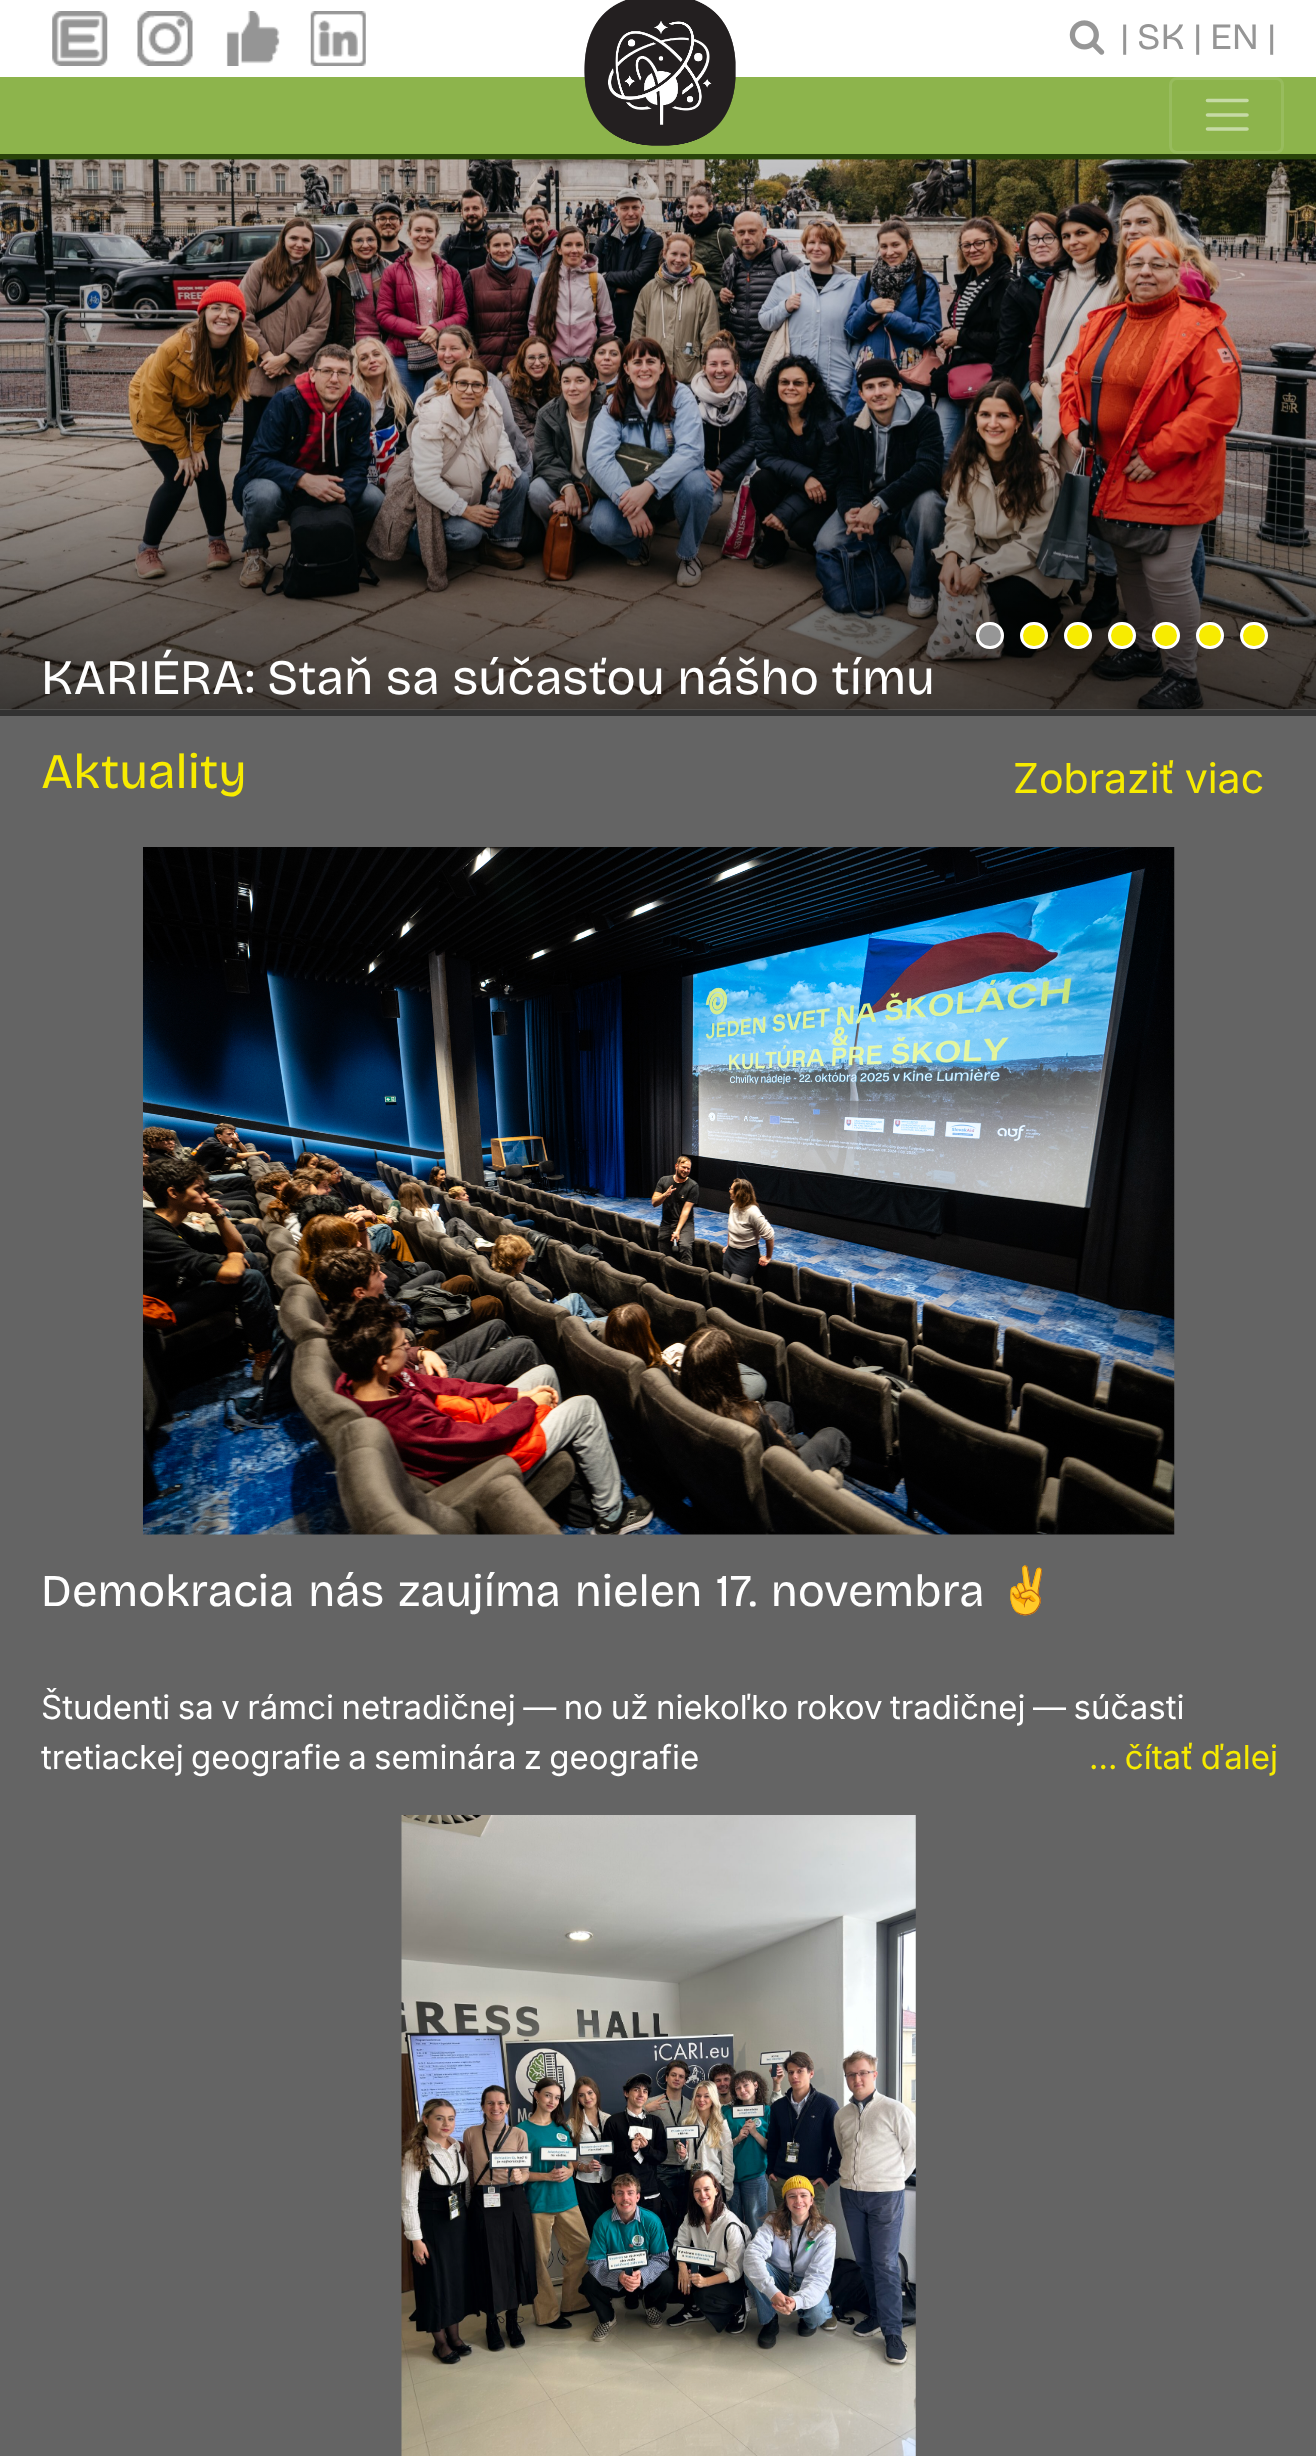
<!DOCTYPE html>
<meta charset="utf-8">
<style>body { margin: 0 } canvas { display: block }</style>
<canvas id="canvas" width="1316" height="2456"></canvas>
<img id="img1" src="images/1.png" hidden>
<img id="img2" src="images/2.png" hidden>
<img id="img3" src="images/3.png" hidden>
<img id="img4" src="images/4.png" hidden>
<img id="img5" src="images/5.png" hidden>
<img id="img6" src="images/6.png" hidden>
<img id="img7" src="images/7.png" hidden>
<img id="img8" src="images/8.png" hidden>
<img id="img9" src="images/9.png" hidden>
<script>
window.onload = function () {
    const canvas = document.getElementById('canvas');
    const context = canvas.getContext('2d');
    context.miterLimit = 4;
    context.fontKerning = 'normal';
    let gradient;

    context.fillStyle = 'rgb(255, 255, 255)';
    context.fillRect(0, 0, 1316, 2456);
    context.fillStyle = 'rgb(141, 180, 76)';
    context.fillRect(0, 77, 1316, 77);
    context.drawImage(document.getElementById('img1'), 584, 0, 152, 146);
    context.drawImage(document.getElementById('img2'), 52, 11, 56, 55);
    context.drawImage(document.getElementById('img3'), 137, 11, 56, 55);
    context.drawImage(document.getElementById('img4'), 226, 11, 54, 55);
    context.drawImage(document.getElementById('img5'), 310, 11, 56, 55);
    context.drawImage(document.getElementById('img6'), 1069, 20, 36, 35);
    context.fillStyle = 'rgb(41, 68, 10)';
    context.fillRect(0, 154, 1316, 6);
    context.beginPath();
    context.roundRect(1170.5, 78.5, 112, 74, 6.5);
    context.strokeStyle = 'rgb(152, 188, 94)';
    context.lineWidth = 3;
    context.stroke();
    context.beginPath();
    context.moveTo(1207.5, 100.5);
    context.lineTo(1247, 100.5);
    context.moveTo(1207.5, 115);
    context.lineTo(1247, 115);
    context.moveTo(1207.5, 129);
    context.lineTo(1247, 129);
    context.strokeStyle = 'rgb(198, 218, 166)';
    context.lineWidth = 3.6;
    context.lineCap = 'round';
    context.stroke();
    context.drawImage(document.getElementById('img7'), 0, 159, 1316, 551);
    gradient = context.createLinearGradient(659, 434, 659, 710);
    gradient.addColorStop(0, 'rgba(0, 0, 0, 0)');
    gradient.addColorStop(1, 'rgba(0, 0, 0, 0.63)');
    context.fillStyle = gradient;
    context.fillRect(0, 443, 1316, 267);
    context.fillStyle = 'rgb(150, 150, 150)';
    context.beginPath();
    context.roundRect(977.5, 623.5, 25, 24, 12);
    context.fill();
    context.strokeStyle = 'rgb(255, 255, 255)';
    context.lineWidth = 3;
    context.stroke();
    context.fillStyle = 'rgb(247, 235, 0)';
    context.beginPath();
    context.roundRect(1021.5, 623.5, 25, 24, 12);
    context.fill();
    context.stroke();
    context.beginPath();
    context.roundRect(1065.5, 623.5, 25, 24, 12);
    context.fill();
    context.stroke();
    context.beginPath();
    context.roundRect(1109.5, 623.5, 25, 24, 12);
    context.fill();
    context.stroke();
    context.beginPath();
    context.roundRect(1153.5, 623.5, 25, 24, 12);
    context.fill();
    context.stroke();
    context.beginPath();
    context.roundRect(1197.5, 623.5, 25, 24, 12);
    context.fill();
    context.stroke();
    context.beginPath();
    context.roundRect(1241.5, 623.5, 25, 24, 12);
    context.fill();
    context.stroke();
    context.fillStyle = 'rgb(100, 100, 100)';
    context.fillRect(0, 716, 1316, 1740);
    context.fillStyle = 'rgb(50, 50, 50)';
    context.fillRect(0, 710, 1316, 6);
    context.drawImage(document.getElementById('img8'), 143, 847, 1032, 688);
    context.drawImage(document.getElementById('img9'), 401, 1815, 515, 641);
    context.font = '37px "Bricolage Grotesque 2"';
    context.fillStyle = 'rgb(150, 150, 150)';
    context.fillText('|', 1120, 49);
    context.fillText('SK', 1137, 49);
    context.fillText('|', 1193, 49);
    context.fillText('EN', 1210, 49);
    context.fillText('|', 1267, 49);
    context.font = '49.5px Bricolage Grotesque';
    context.fillStyle = 'rgb(255, 255, 255)';
    context.fillText('KARIÉRA: Staň sa súčasťou nášho tímu', 41, 694);
    context.fillStyle = 'rgb(247, 235, 0)';
    context.fillText('Aktuality', 41, 788);
    context.wordSpacing = '-2px';
    context.font = '41.25px Inter';
    context.fillText('Zobraziť viac', 1013, 793);
    context.wordSpacing = '2.5px';
    context.font = '45.4px "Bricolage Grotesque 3"';
    context.fillStyle = 'rgb(255, 255, 255)';
    context.fillText('Demokracia nás zaujíma nielen 17. novembra', 41, 1606);
    context.wordSpacing = '0px';
    context.font = '45.4px Noto Color Emoji';
    context.fillText('✌️', 998, 1606);
    context.wordSpacing = '-1.75px';
    context.font = '33px "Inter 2"';
    context.fillText('Študenti sa v rámci netradičnej — no už niekoľko rokov tradičnej — súčasti', 41, 1719);
    context.wordSpacing = '-2px';
    context.fillText('tretiackej geografie a seminára z geografie', 41, 1769);
    context.fillStyle = 'rgb(247, 235, 0)';
    context.fillText('… čítať ďalej', 1089, 1769);
};
</script>
